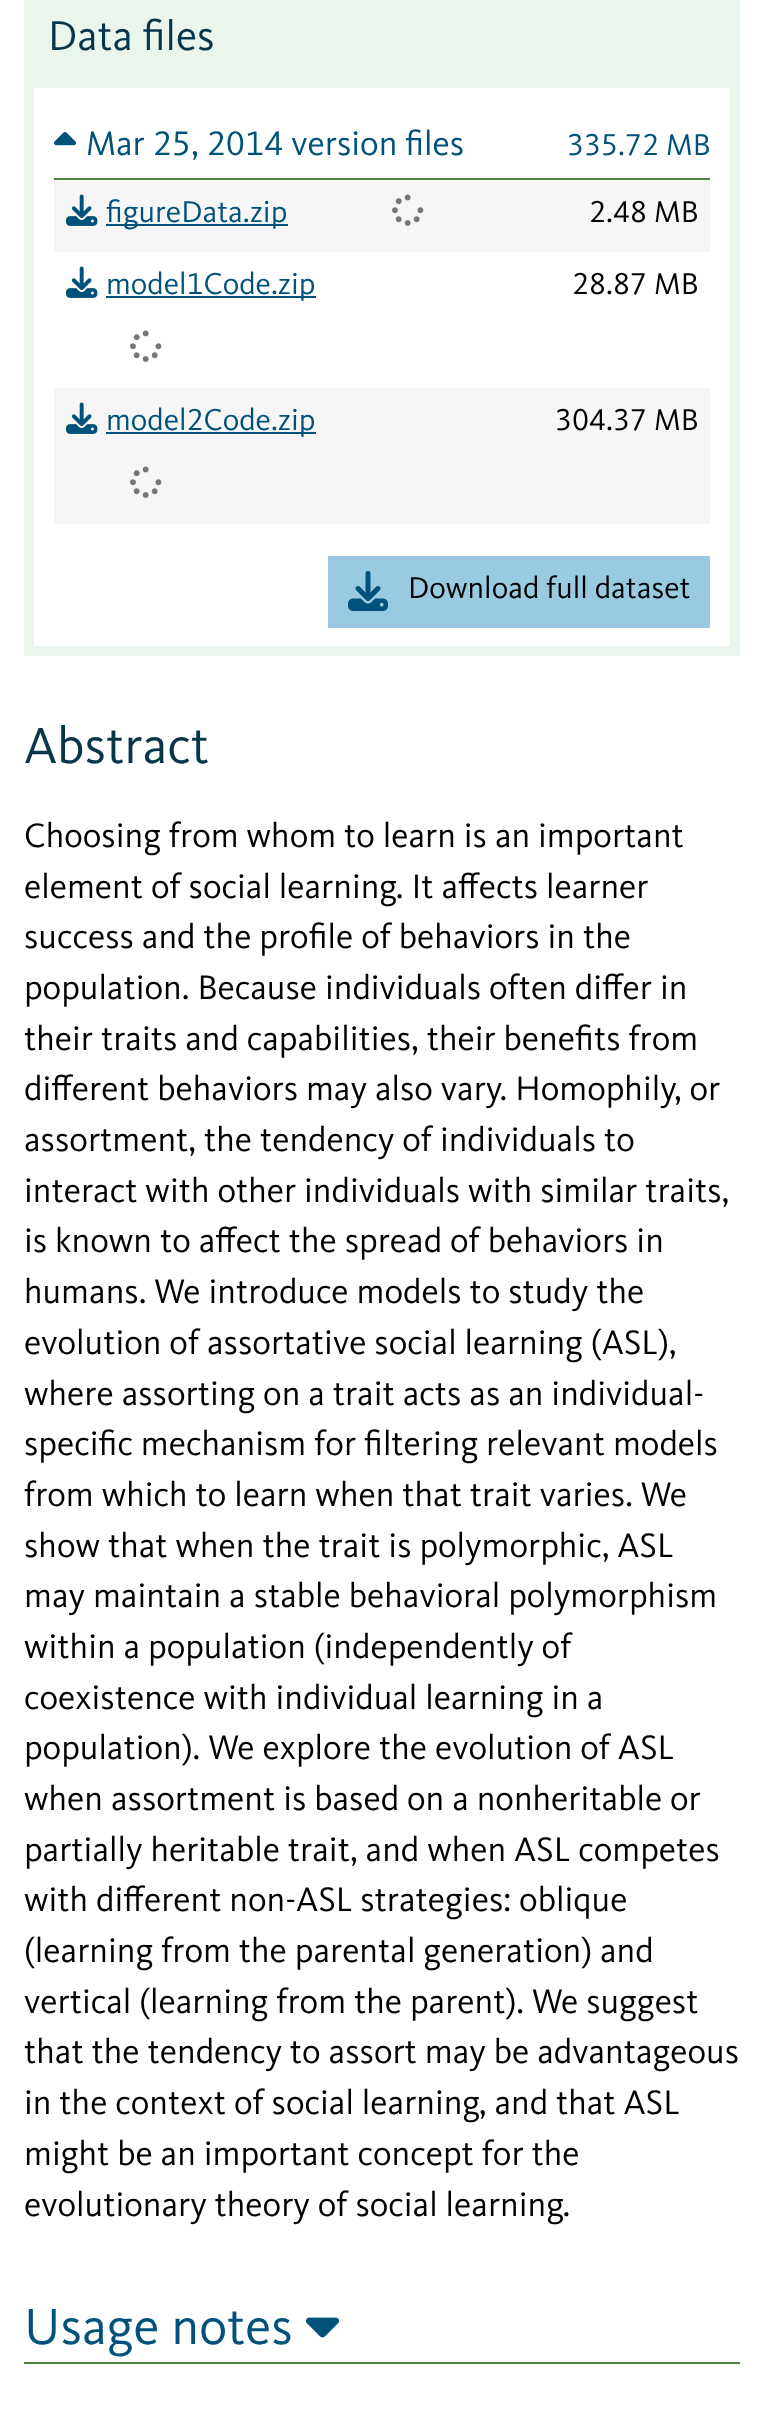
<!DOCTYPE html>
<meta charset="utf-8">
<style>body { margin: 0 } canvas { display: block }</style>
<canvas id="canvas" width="759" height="2433"></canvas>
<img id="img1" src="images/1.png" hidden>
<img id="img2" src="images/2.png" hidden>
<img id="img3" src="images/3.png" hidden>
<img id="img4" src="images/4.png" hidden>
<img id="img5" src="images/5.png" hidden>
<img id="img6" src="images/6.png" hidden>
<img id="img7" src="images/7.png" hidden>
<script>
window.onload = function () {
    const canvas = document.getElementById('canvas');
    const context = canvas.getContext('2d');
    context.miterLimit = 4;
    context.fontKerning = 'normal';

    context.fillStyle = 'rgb(255, 255, 255)';
    context.fillRect(0, 0, 759, 2433);
    context.fillStyle = 'rgb(234, 245, 235)';
    context.fillRect(24, 0, 716, 88);
    context.fillRect(730, 88, 10, 558);
    context.fillRect(34, 646, 706, 10);
    context.fillRect(24, 88, 10, 568);
    context.fillStyle = 'rgb(82, 131, 70)';
    context.fillRect(54, 178, 656, 2);
    context.drawImage(document.getElementById('img1'), 54, 132, 22, 14);
    context.fillStyle = 'rgb(246, 246, 246)';
    context.fillRect(54, 180, 656, 72);
    context.drawImage(document.getElementById('img2'), 66, 194, 32, 32);
    context.fillStyle = 'rgb(0, 82, 122)';
    context.fillRect(106, 224, 182, 2);
    context.drawImage(document.getElementById('img3'), 392, 194, 32, 32);
    context.drawImage(document.getElementById('img4'), 66, 266, 32, 32);
    context.fillRect(106, 296, 210, 2);
    context.drawImage(document.getElementById('img5'), 130, 330, 32, 32);
    context.fillStyle = 'rgb(246, 246, 246)';
    context.fillRect(54, 388, 656, 136);
    context.drawImage(document.getElementById('img2'), 66, 402, 32, 32);
    context.fillStyle = 'rgb(0, 82, 122)';
    context.fillRect(106, 432, 210, 2);
    context.drawImage(document.getElementById('img3'), 130, 466, 32, 32);
    context.fillStyle = 'rgb(152, 202, 226)';
    context.fillRect(328, 556, 382, 72);
    context.drawImage(document.getElementById('img6'), 348, 571, 40, 40);
    context.fillStyle = 'rgb(82, 131, 70)';
    context.fillRect(24, 2362, 716, 2);
    context.drawImage(document.getElementById('img7'), 306, 2317, 33, 21);
    context.font = '43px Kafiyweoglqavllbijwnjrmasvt';
    context.fillStyle = 'rgb(7, 54, 75)';
    context.fillText('Data files', 48, 50);
    context.font = '35.2px Kafiyweoglqavllbijwnjrmasvt';
    context.fillStyle = 'rgb(0, 82, 122)';
    context.fillText('Mar 25, 2014 version files', 86, 155);
    context.font = '31.25px Kafiyweoglqavllbijwnjrmasvt';
    context.fillText('335.72 MB', 567, 155);
    context.fillText('figureData.zip', 106, 222);
    context.fillStyle = 'rgb(0, 0, 0)';
    context.fillText('2.48 MB', 589, 222);
    context.fillStyle = 'rgb(0, 82, 122)';
    context.fillText('model1Code.zip', 106, 294);
    context.fillStyle = 'rgb(0, 0, 0)';
    context.fillText('28.87 MB', 572, 294);
    context.fillStyle = 'rgb(0, 82, 122)';
    context.fillText('model2Code.zip', 106, 430);
    context.fillStyle = 'rgb(0, 0, 0)';
    context.fillText('304.37 MB', 555, 430);
    context.fillText('Download full dataset', 408, 598);
    context.font = '52.75px Kafiyweoglqavllbijwnjrmasvt';
    context.fillStyle = 'rgb(7, 54, 75)';
    context.fillText('Abstract', 24, 763);
    context.font = '35.2px Kafiyweoglqavllbijwnjrmasvt';
    context.fillStyle = 'rgb(0, 0, 0)';
    context.fillText('Choosing from whom to learn is an important', 24, 847);
    context.fillText('element of social learning. It affects learner', 24, 898);
    context.fillText('success and the profile of behaviors in the', 24, 948);
    context.fillText('population. Because individuals often differ in', 24, 999);
    context.fillText('their traits and capabilities, their benefits from', 24, 1050);
    context.fillText('different behaviors may also vary. Homophily, or', 24, 1100);
    context.fillText('assortment, the tendency of individuals to', 24, 1151);
    context.fillText('interact with other individuals with similar traits,', 24, 1202);
    context.fillText('is known to affect the spread of behaviors in', 24, 1252);
    context.fillText('humans. We introduce models to study the', 24, 1303);
    context.fillText('evolution of assortative social learning (ASL),', 24, 1354);
    context.fillText('where assorting on a trait acts as an individual-', 24, 1405);
    context.fillText('specific mechanism for filtering relevant models', 24, 1455);
    context.fillText('from which to learn when that trait varies. We', 24, 1506);
    context.fillText('show that when the trait is polymorphic, ASL', 24, 1557);
    context.fillText('may maintain a stable behavioral polymorphism', 24, 1607);
    context.fillText('within a population (independently of', 24, 1658);
    context.fillText('coexistence with individual learning in a', 24, 1709);
    context.fillText('population). We explore the evolution of ASL', 24, 1759);
    context.fillText('when assortment is based on a nonheritable or', 24, 1810);
    context.fillText('partially heritable trait, and when ASL competes', 24, 1861);
    context.fillText('with different non-ASL strategies: oblique', 24, 1911);
    context.fillText('(learning from the parental generation) and', 24, 1962);
    context.fillText('vertical (learning from the parent). We suggest', 24, 2013);
    context.fillText('that the tendency to assort may be advantageous', 24, 2063);
    context.fillText('in the context of social learning, and that ASL', 24, 2114);
    context.fillText('might be an important concept for the', 24, 2165);
    context.fillText('evolutionary theory of social learning.', 24, 2216);
    context.font = '52.75px Kafiyweoglqavllbijwnjrmasvt';
    context.fillStyle = 'rgb(0, 82, 122)';
    context.fillText('Usage notes', 24, 2344);
};
</script>
